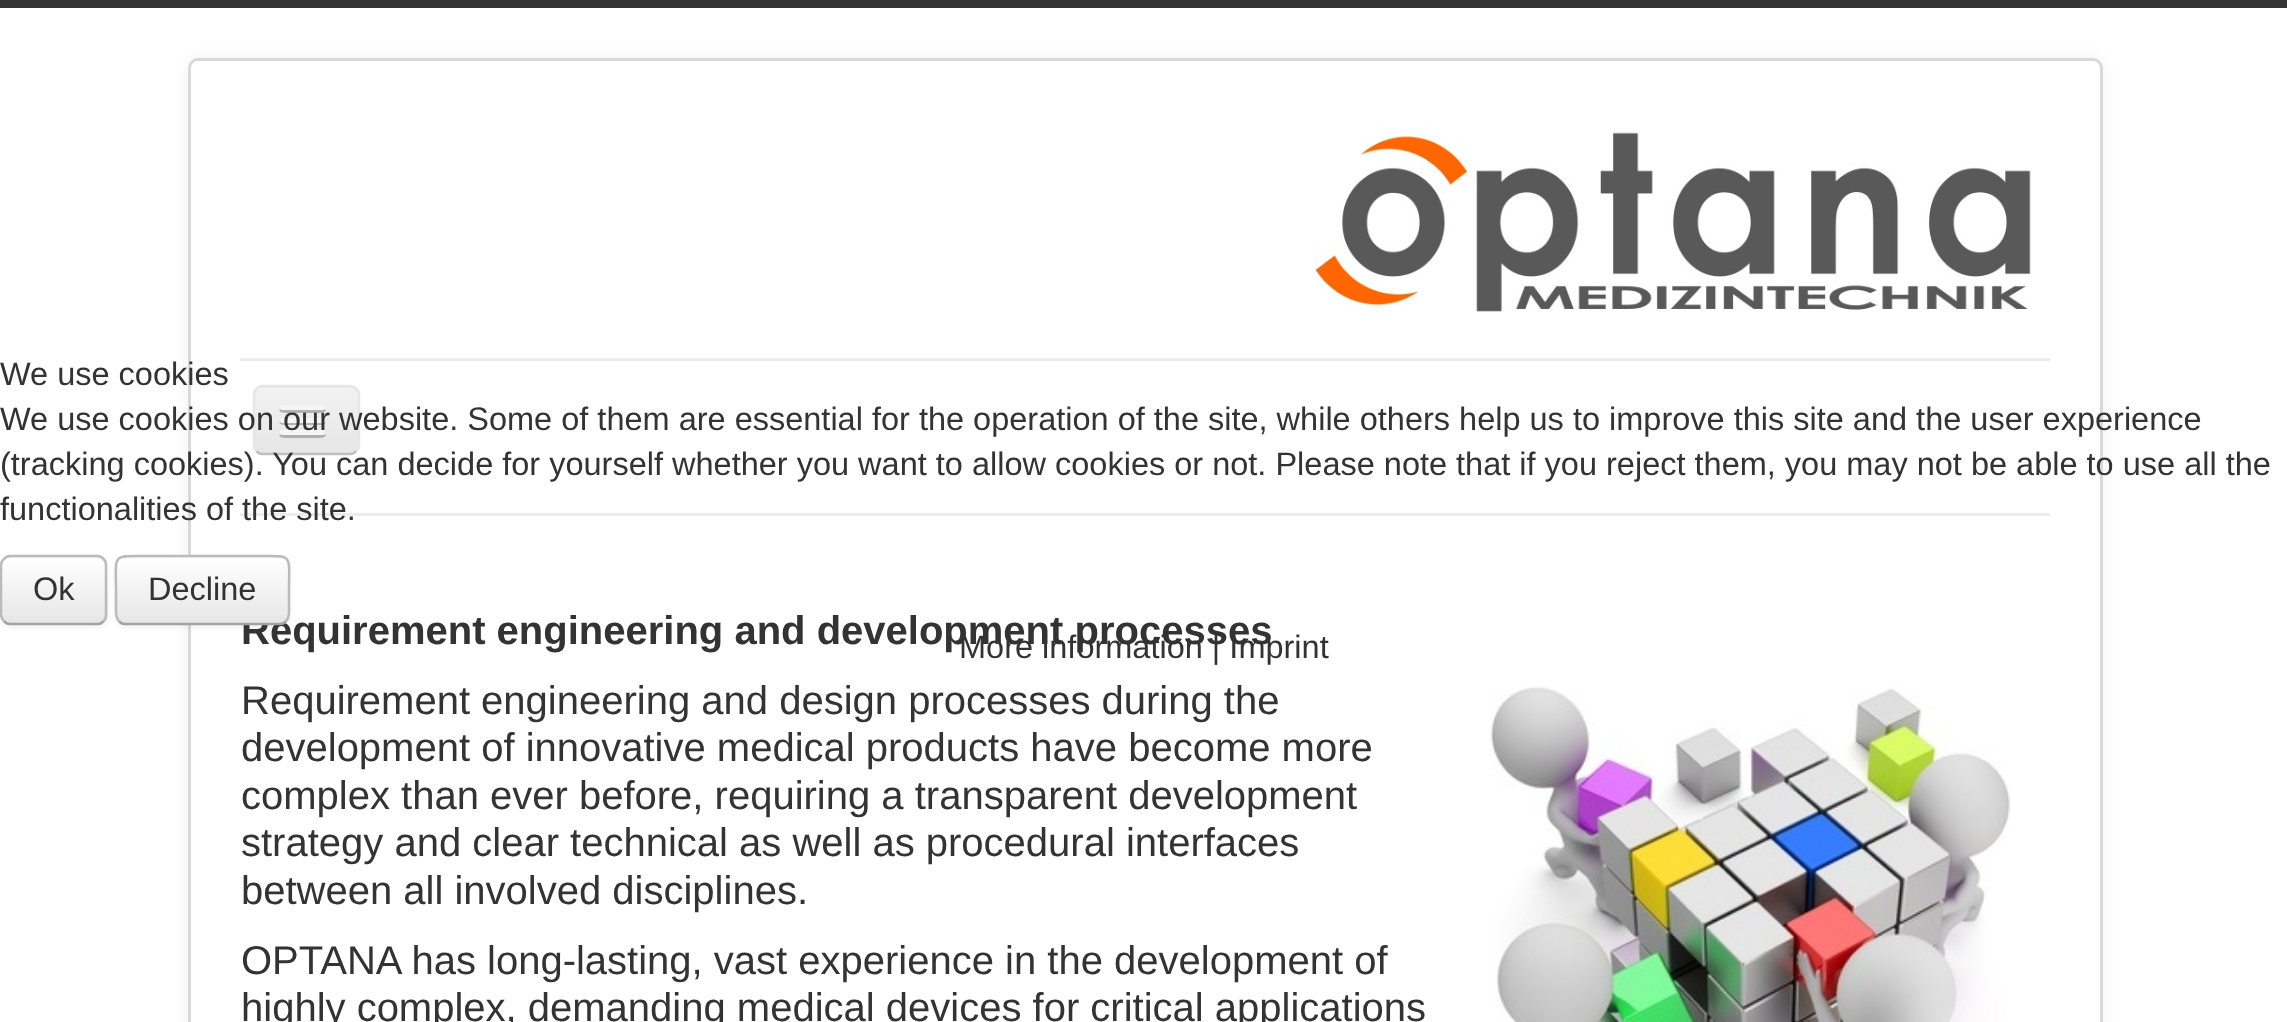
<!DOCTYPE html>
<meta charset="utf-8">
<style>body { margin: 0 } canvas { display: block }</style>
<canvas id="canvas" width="2287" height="1022"></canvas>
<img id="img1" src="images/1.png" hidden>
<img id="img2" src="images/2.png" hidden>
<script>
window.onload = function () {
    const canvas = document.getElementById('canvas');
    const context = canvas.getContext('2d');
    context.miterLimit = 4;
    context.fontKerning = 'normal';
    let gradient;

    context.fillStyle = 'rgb(255, 255, 255)';
    context.fillRect(0, 0, 2287, 1022);
    context.fillStyle = 'rgb(51, 51, 51)';
    context.fillRect(0, 0, 2287, 8);
    context.fillStyle = 'rgba(0, 0, 0, 0.05)';
    context.filter = 'blur(2.5px)';
    context.beginPath();
    context.roundRect(0, 558, 108, 70, 10);
    context.fill();
    context.filter = 'none';
    context.fillStyle = 'rgb(245, 245, 245)';
    context.beginPath();
    context.roundRect(0, 555, 108, 70, 10);
    context.fill();
    context.save();
    context.beginPath();
    context.roundRect(0, 555, 108, 70, 10);
    context.clip();
    gradient = context.createLinearGradient(54, 558, 54, 623);
    gradient.addColorStop(0, 'rgb(255, 255, 255)');
    gradient.addColorStop(1, 'rgb(230, 230, 230)');
    context.fillStyle = gradient;
    context.fillRect(0, 558, 108, 65);
    context.restore();
    context.beginPath();
    context.moveTo(103.5, 621);
    context.bezierCurveTo(102, 623, 100, 624, 97.5, 624);
    context.lineTo(10, 624);
    context.bezierCurveTo(7.5, 624, 5.5, 623, 4, 621);
    context.strokeStyle = 'rgb(162, 162, 162)';
    context.lineWidth = 2.5;
    context.stroke();
    context.beginPath();
    context.moveTo(4, 621);
    context.bezierCurveTo(2, 619.5, 1.5, 617.5, 1, 615);
    context.lineTo(1, 565);
    context.bezierCurveTo(1, 562.5, 2, 560.5, 4, 559);
    context.bezierCurveTo(5.5, 557, 7.5, 556, 10, 556);
    context.lineTo(97.5, 556);
    context.bezierCurveTo(100, 556, 102, 557, 103.5, 559);
    context.bezierCurveTo(105.5, 560.5, 106, 562.5, 106, 565);
    context.lineTo(106, 615);
    context.bezierCurveTo(106, 617.5, 105.5, 619.5, 103.5, 621);
    context.strokeStyle = 'rgb(187, 187, 187)';
    context.stroke();
    context.fillStyle = 'rgba(0, 0, 0, 0.05)';
    context.filter = 'blur(7.5px)';
    context.beginPath();
    context.roundRect(188, 58, 1915, 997, 10);
    context.fill();
    context.filter = 'none';
    context.fillStyle = 'rgb(255, 255, 255)';
    context.beginPath();
    context.roundRect(189.5, 59.5, 1912, 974, 8.5);
    context.fill();
    context.strokeStyle = 'rgb(217, 217, 217)';
    context.lineWidth = 3;
    context.stroke();
    context.fillStyle = 'rgba(0, 0, 0, 0.05)';
    context.filter = 'blur(2.5px)';
    context.beginPath();
    context.roundRect(115, 558, 175, 70, 10);
    context.fill();
    context.filter = 'none';
    context.drawImage(document.getElementById('img1'), 1315, 125, 716, 187);
    context.fillStyle = 'rgb(236, 236, 236)';
    context.fillRect(240, 358, 1810, 3);
    context.fillRect(240, 513, 1810, 3);
    context.fillStyle = 'rgb(237, 237, 237)';
    context.beginPath();
    context.roundRect(253, 385, 107, 70, 10);
    context.fill();
    context.save();
    context.beginPath();
    context.roundRect(253, 385, 107, 70, 10);
    context.clip();
    gradient = context.createLinearGradient(306, 388, 306, 453);
    gradient.addColorStop(0, 'rgb(242, 242, 242)');
    gradient.addColorStop(1, 'rgb(230, 230, 230)');
    context.fillStyle = gradient;
    context.fillRect(253, 388, 107, 65);
    context.restore();
    context.beginPath();
    context.moveTo(356, 451);
    context.bezierCurveTo(354.5, 453, 352.5, 454, 350, 454);
    context.lineTo(262.5, 454);
    context.bezierCurveTo(260, 454, 258, 453, 256.5, 451);
    context.strokeStyle = 'rgb(191, 191, 191)';
    context.lineWidth = 2.5;
    context.stroke();
    context.beginPath();
    context.moveTo(256.5, 451);
    context.bezierCurveTo(254.5, 449.5, 254, 447.5, 254, 445);
    context.lineTo(254, 395);
    context.bezierCurveTo(254, 392.5, 254.5, 390.5, 256.5, 389);
    context.bezierCurveTo(258, 387, 260, 386, 262.5, 386);
    context.lineTo(350, 386);
    context.bezierCurveTo(352.5, 386, 354.5, 387, 356, 389);
    context.bezierCurveTo(358, 390.5, 359, 392.5, 359, 395);
    context.lineTo(359, 445);
    context.bezierCurveTo(359, 447.5, 358, 449.5, 356, 451);
    context.strokeStyle = 'rgb(230, 230, 230)';
    context.stroke();
    context.fillStyle = 'rgb(178, 178, 178)';
    context.beginPath();
    context.moveTo(280, 409);
    context.bezierCurveTo(277, 413, 285, 413, 289, 413);
    context.lineTo(316, 413);
    context.bezierCurveTo(320, 413, 328, 413, 325, 409);
    context.lineTo(323, 410);
    context.lineTo(282, 410);
    context.closePath();
    context.fill();
    context.fillStyle = 'rgb(245, 245, 245)';
    context.beginPath();
    context.roundRect(280, 405, 45, 5, 2.5);
    context.fill();
    context.fillStyle = 'rgb(177, 177, 177)';
    context.beginPath();
    context.moveTo(280, 421);
    context.bezierCurveTo(277, 426, 289, 425, 289, 425);
    context.lineTo(316, 425);
    context.bezierCurveTo(316, 425, 328, 426, 325, 421);
    context.bezierCurveTo(324, 422, 323, 422, 322, 422);
    context.lineTo(282, 422);
    context.bezierCurveTo(282, 422, 281, 422, 280, 421);
    context.closePath();
    context.fill();
    context.fillStyle = 'rgb(245, 245, 245)';
    context.beginPath();
    context.roundRect(280, 418, 45, 5, 2.5);
    context.fill();
    context.fillStyle = 'rgb(175, 175, 175)';
    context.beginPath();
    context.moveTo(280, 434);
    context.bezierCurveTo(277, 438, 285, 438, 289, 438);
    context.lineTo(316, 438);
    context.bezierCurveTo(320, 438, 328, 438, 325, 434);
    context.lineTo(323, 435);
    context.lineTo(282, 435);
    context.closePath();
    context.fill();
    context.fillStyle = 'rgb(245, 245, 245)';
    context.beginPath();
    context.roundRect(280, 430, 45, 5, 2.5);
    context.fill();
    context.drawImage(document.getElementById('img2'), 1490, 686, 521, 336);
    context.font = '32.5px Liberation Sans';
    context.fillStyle = 'rgb(51, 51, 51)';
    context.fillText('We use cookies', 0, 385);
    context.fillText('We use cookies on our website. Some of them are essential for the operation of the site, while others help us to improve this site and the user experience', 0, 430);
    context.fillText('(tracking cookies). You can decide for yourself whether you want to allow cookies or not. Please note that if you reject them, you may not be able to use all the', 0, 475);
    context.fillText('functionalities of the site.', 0, 520);
    context.fillText('Ok', 33, 600);
    context.font = 'bold 40px Liberation Sans';
    context.fillText('Requirement engineering and development processes', 241, 644);
    context.font = '32.5px Liberation Sans';
    context.fillText('More information | Imprint', 959, 658);
    context.fillStyle = 'rgb(245, 245, 245)';
    context.beginPath();
    context.roundRect(115, 555, 175, 70, 10);
    context.fill();
    context.save();
    context.beginPath();
    context.roundRect(115, 555, 175, 70, 10);
    context.clip();
    gradient = context.createLinearGradient(203, 558, 203, 623);
    gradient.addColorStop(0, 'rgb(255, 255, 255)');
    gradient.addColorStop(1, 'rgb(230, 230, 230)');
    context.fillStyle = gradient;
    context.fillRect(115, 558, 175, 65);
    context.restore();
    context.beginPath();
    context.moveTo(286, 621);
    context.bezierCurveTo(284.5, 623, 282.5, 624, 280, 624);
    context.lineTo(125, 624);
    context.bezierCurveTo(122.5, 624, 120.5, 623, 119, 621);
    context.strokeStyle = 'rgb(162, 162, 162)';
    context.stroke();
    context.beginPath();
    context.moveTo(119, 621);
    context.bezierCurveTo(115, 617.5, 116, 611.5, 116, 606.5);
    context.lineTo(116, 590);
    context.bezierCurveTo(116, 552, 111, 556, 151, 556);
    context.lineTo(254, 556);
    context.bezierCurveTo(294, 556, 289, 552, 289, 590);
    context.lineTo(289, 606.5);
    context.bezierCurveTo(289, 611.5, 290, 617.5, 286, 621);
    context.strokeStyle = 'rgb(187, 187, 187)';
    context.stroke();
    context.fillStyle = 'rgb(51, 51, 51)';
    context.fillText('Decline', 148, 600);
    context.font = '40px Liberation Sans';
    context.fillText('Requirement engineering and design processes during the', 241, 714);
    context.fillText('development of innovative medical products have become more', 241, 761);
    context.fillText('complex than ever before, requiring a transparent development', 241, 809);
    context.fillText('strategy and clear technical as well as procedural interfaces', 241, 856);
    context.fillText('between all involved disciplines.', 241, 904);
    context.fillText('OPTANA has long-lasting, vast experience in the development of', 241, 974);
    context.fillText('highly complex, demanding medical devices for critical applications', 241, 1021);
};
</script>
